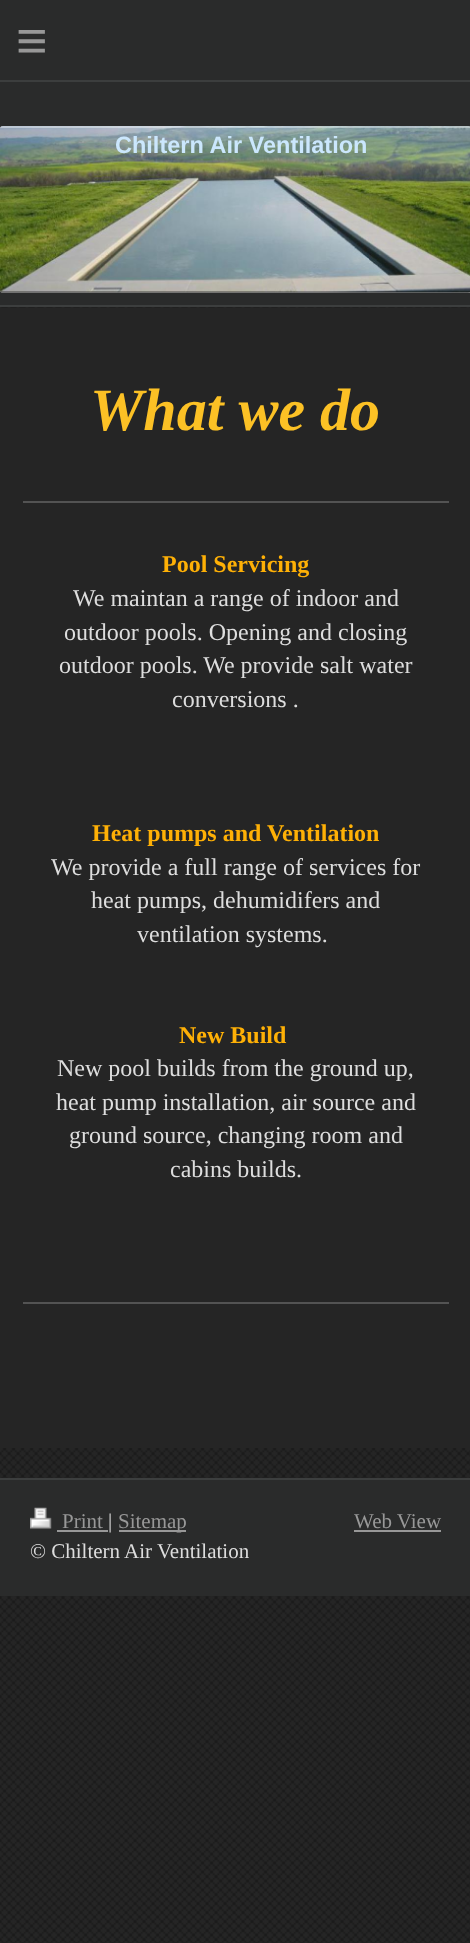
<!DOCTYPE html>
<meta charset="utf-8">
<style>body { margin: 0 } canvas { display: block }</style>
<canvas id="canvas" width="470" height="1943"></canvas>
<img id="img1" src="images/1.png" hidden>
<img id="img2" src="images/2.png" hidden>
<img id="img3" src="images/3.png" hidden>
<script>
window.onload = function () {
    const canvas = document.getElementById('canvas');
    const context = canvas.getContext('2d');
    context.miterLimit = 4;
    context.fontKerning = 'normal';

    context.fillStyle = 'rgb(37, 37, 37)';
    context.fillRect(0, 0, 470, 1943);
    context.drawImage(document.getElementById('img1'), 0, 307, 470, 1636);
    context.fillStyle = 'rgb(42, 43, 43)';
    context.fillRect(0, 0, 470, 80);
    context.fillStyle = 'rgb(60, 62, 62)';
    context.fillRect(0, 80, 470, 2);
    context.fillStyle = 'rgb(42, 43, 43)';
    context.fillRect(0, 82, 470, 223);
    context.fillStyle = 'rgb(60, 62, 62)';
    context.fillRect(0, 305, 470, 2);
    context.fillStyle = 'rgb(160, 160, 160)';
    context.beginPath();
    context.roundRect(0, 126, 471, 167, 3);
    context.fill();
    context.drawImage(document.getElementById('img2'), 0, 126, 470, 167);
    context.save();
    context.beginPath();
    context.roundRect(0, 126, 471, 167, 3);
    context.clip();
    context.fillStyle = 'rgba(255, 255, 255, 0.4)';
    context.fillRect(0, 126, 470, 2);
    context.restore();
    context.fillStyle = 'rgba(0, 0, 0, 0.3)';
    context.beginPath();
    context.moveTo(0, 291);
    context.bezierCurveTo(1, 292, 2, 293, 3, 293);
    context.lineTo(468, 293);
    context.bezierCurveTo(469, 293, 470, 292, 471, 291);
    context.closePath();
    context.fill();
    context.fillStyle = 'rgb(37, 37, 37)';
    context.fillRect(0, 308, 470, 1140);
    context.fillStyle = 'rgb(83, 83, 83)';
    context.fillRect(23, 501, 426, 2);
    context.fillRect(23, 1302, 426, 2);
    context.fillStyle = 'rgb(42, 43, 43)';
    context.fillRect(0, 1480, 470, 116);
    context.fillStyle = 'rgb(60, 62, 62)';
    context.fillRect(0, 1478, 470, 2);
    context.drawImage(document.getElementById('img3'), 30, 1507, 22, 22);
    context.fillStyle = 'rgb(152, 152, 152)';
    context.fillRect(57, 1530, 51, 2);
    context.fillRect(119, 1530, 67, 2);
    context.fillRect(354, 1530, 87, 2);
    context.letterSpacing = '16px';
    context.font = '54px Liberation Sans';
    context.fillText('≡', 16, 59);
    context.letterSpacing = '0px';
    context.font = 'bold 23.5px Liberation Sans';
    context.fillStyle = 'rgb(203, 231, 253)';
    context.fillText('Chiltern Air Ventilation', 115, 153);
    context.font = 'italic bold 60px Liberation Serif';
    context.fillStyle = 'rgb(252, 193, 37)';
    context.fillText('What we do', 90, 430);
    context.font = 'bold 24px Liberation Serif';
    context.fillStyle = 'rgb(254, 176, 6)';
    context.fillText('Pool Servicing', 162, 572);
    context.font = '24px Liberation Serif';
    context.fillStyle = 'rgb(221, 221, 221)';
    context.fillText('We maintan a range of indoor and', 73, 606);
    context.fillText('outdoor pools. Opening and closing', 64, 640);
    context.fillText('outdoor pools. We provide salt water', 59, 673);
    context.fillText('conversions .', 172, 707);
    context.font = 'bold 24px Liberation Serif';
    context.fillStyle = 'rgb(254, 176, 6)';
    context.fillText('Heat pumps and Ventilation', 92, 841);
    context.font = '24px Liberation Serif';
    context.fillStyle = 'rgb(221, 221, 221)';
    context.fillText('We provide a full range of services for', 51, 875);
    context.fillText('heat pumps, dehumidifers and', 91, 908);
    context.fillText('ventilation systems.', 137, 942);
    context.font = 'bold 24px Liberation Serif';
    context.fillStyle = 'rgb(254, 176, 6)';
    context.fillText('New Build', 179, 1043);
    context.font = '24px Liberation Serif';
    context.fillStyle = 'rgb(221, 221, 221)';
    context.fillText('New pool builds from the ground up,', 57, 1076);
    context.fillText('heat pump installation, air source and', 56, 1110);
    context.fillText('ground source, changing room and', 69, 1143);
    context.fillText('cabins builds.', 170, 1177);
    context.font = '21px Liberation Serif';
    context.fillStyle = 'rgb(152, 152, 152)';
    context.fillText('Print', 62, 1528);
    context.fillStyle = 'rgb(221, 221, 221)';
    context.fillText('|', 108, 1528);
    context.fillStyle = 'rgb(152, 152, 152)';
    context.fillText('Sitemap', 118, 1528);
    context.fillStyle = 'rgb(221, 221, 221)';
    context.fillText('© Chiltern Air Ventilation', 30, 1558);
    context.fillStyle = 'rgb(152, 152, 152)';
    context.fillText('Web View', 354, 1528);
};
</script>
